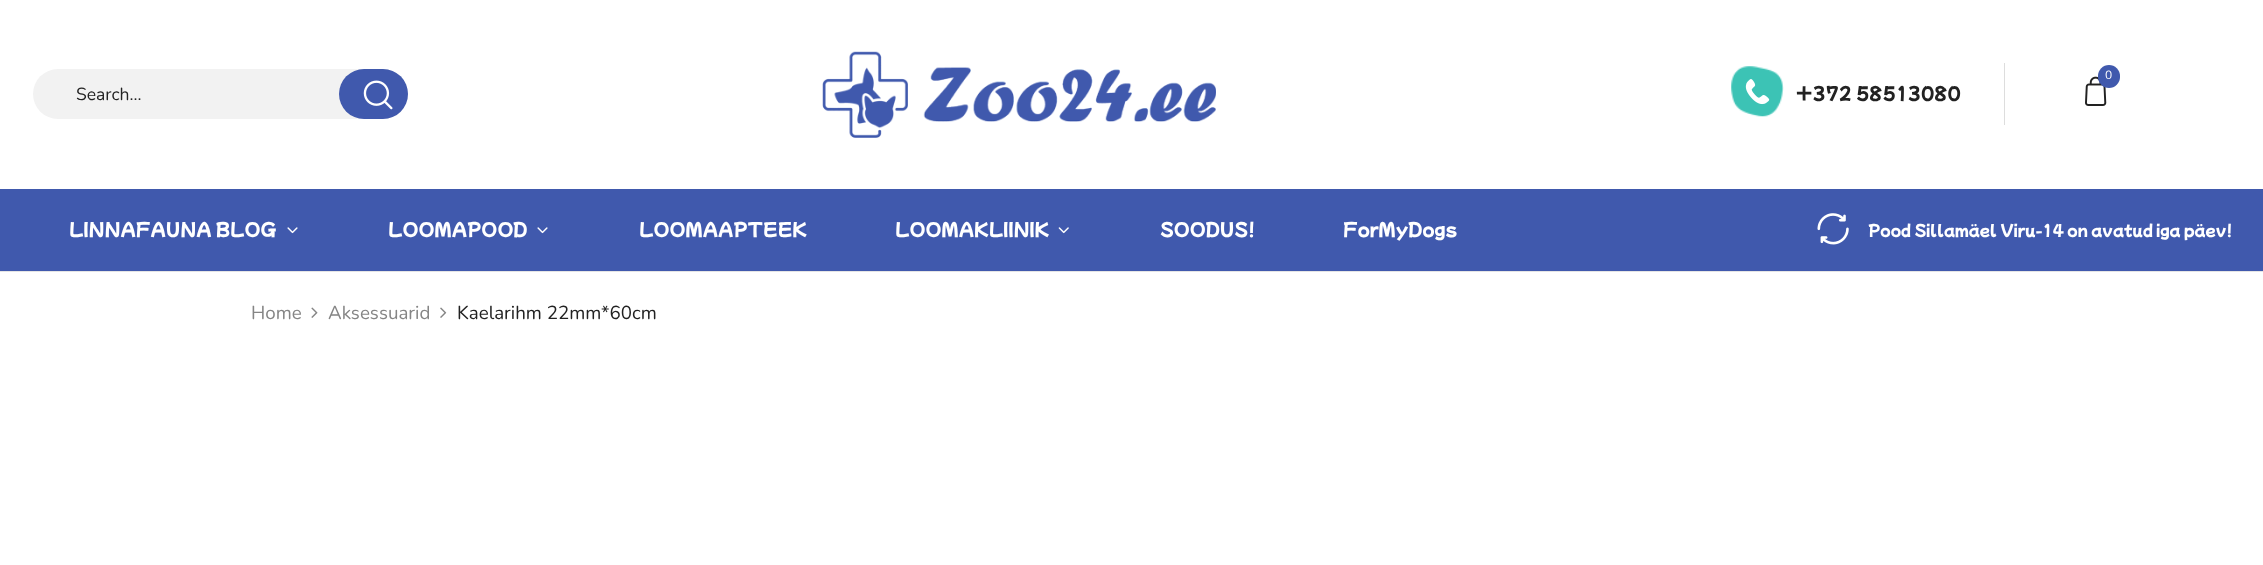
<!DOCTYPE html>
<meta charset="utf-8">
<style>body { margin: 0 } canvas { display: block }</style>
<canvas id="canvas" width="2263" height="565"></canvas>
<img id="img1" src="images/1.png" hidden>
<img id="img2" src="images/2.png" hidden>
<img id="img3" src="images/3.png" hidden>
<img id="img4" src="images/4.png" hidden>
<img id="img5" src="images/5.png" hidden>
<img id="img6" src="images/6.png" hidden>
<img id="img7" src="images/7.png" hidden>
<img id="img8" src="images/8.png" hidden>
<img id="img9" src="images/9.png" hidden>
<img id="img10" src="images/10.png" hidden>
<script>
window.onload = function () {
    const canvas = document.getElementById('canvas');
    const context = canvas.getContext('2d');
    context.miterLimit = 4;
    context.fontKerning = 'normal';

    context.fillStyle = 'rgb(255, 255, 255)';
    context.fillRect(0, 0, 2263, 565);
    context.fillStyle = 'rgb(229, 229, 229)';
    context.fillRect(0, 271, 2263, 1);
    context.fillStyle = 'rgb(242, 242, 242)';
    context.beginPath();
    context.roundRect(33, 69, 375, 50, 25);
    context.fill();
    context.fillStyle = 'rgb(64, 89, 173)';
    context.beginPath();
    context.roundRect(339, 69, 69, 50, 25);
    context.fill();
    context.drawImage(document.getElementById('img1'), 363, 80, 30, 30);
    context.drawImage(document.getElementById('img2'), 822, 51, 394, 87);
    context.drawImage(document.getElementById('img3'), 2085, 76, 22, 30);
    context.beginPath();
    context.roundRect(2098, 65, 22, 23, 11);
    context.fill();
    context.drawImage(document.getElementById('img4'), 1731, 66, 53, 51);
    context.fillStyle = 'rgb(221, 221, 221)';
    context.fillRect(2004, 63, 1, 62);
    context.drawImage(document.getElementById('img5'), 1745, 79, 25, 26);
    context.fillStyle = 'rgb(64, 89, 173)';
    context.fillRect(0, 189, 2263, 82);
    context.drawImage(document.getElementById('img6'), 287, 227, 11, 7);
    context.drawImage(document.getElementById('img6'), 537, 227, 11, 7);
    context.drawImage(document.getElementById('img7'), 1058, 227, 11, 7);
    context.drawImage(document.getElementById('img8'), 1817, 213, 32, 32);
    context.drawImage(document.getElementById('img9'), 311, 307, 7, 11);
    context.drawImage(document.getElementById('img10'), 440, 307, 7, 11);
    context.font = '17.5px Nunito';
    context.fillStyle = 'rgb(34, 34, 34)';
    context.fillText('Search...', 76, 100);
    context.font = '12px Nunito';
    context.fillStyle = 'rgb(255, 255, 255)';
    context.fillText('0', 2105, 79);
    context.font = '17.5px Mochiy Pop P One';
    context.fillStyle = 'rgb(34, 34, 34)';
    context.fillText('+372 58513080', 1796, 100);
    context.fillStyle = 'rgb(255, 255, 255)';
    context.fillText('LINNAFAUNA BLOG', 69, 236);
    context.fillText('LOOMAPOOD', 388, 236);
    context.fillText('LOOMAAPTEEK', 639, 236);
    context.fillText('LOOMAKLIINIK', 895, 236);
    context.fillText('SOODUS!', 1160, 236);
    context.fillText('ForMyDogs', 1343, 236);
    context.font = '15px Mochiy Pop P One';
    context.fillText('Pood Sillamäel Viru-14 on avatud iga päev!', 1868, 236);
    context.font = '18.75px Nunito';
    context.fillStyle = 'rgb(133, 133, 133)';
    context.fillText('Home', 251, 319);
    context.fillText('Aksessuarid', 328, 319);
    context.fillStyle = 'rgb(34, 34, 34)';
    context.fillText('Kaelarihm 22mm*60cm', 457, 319);
};
</script>
